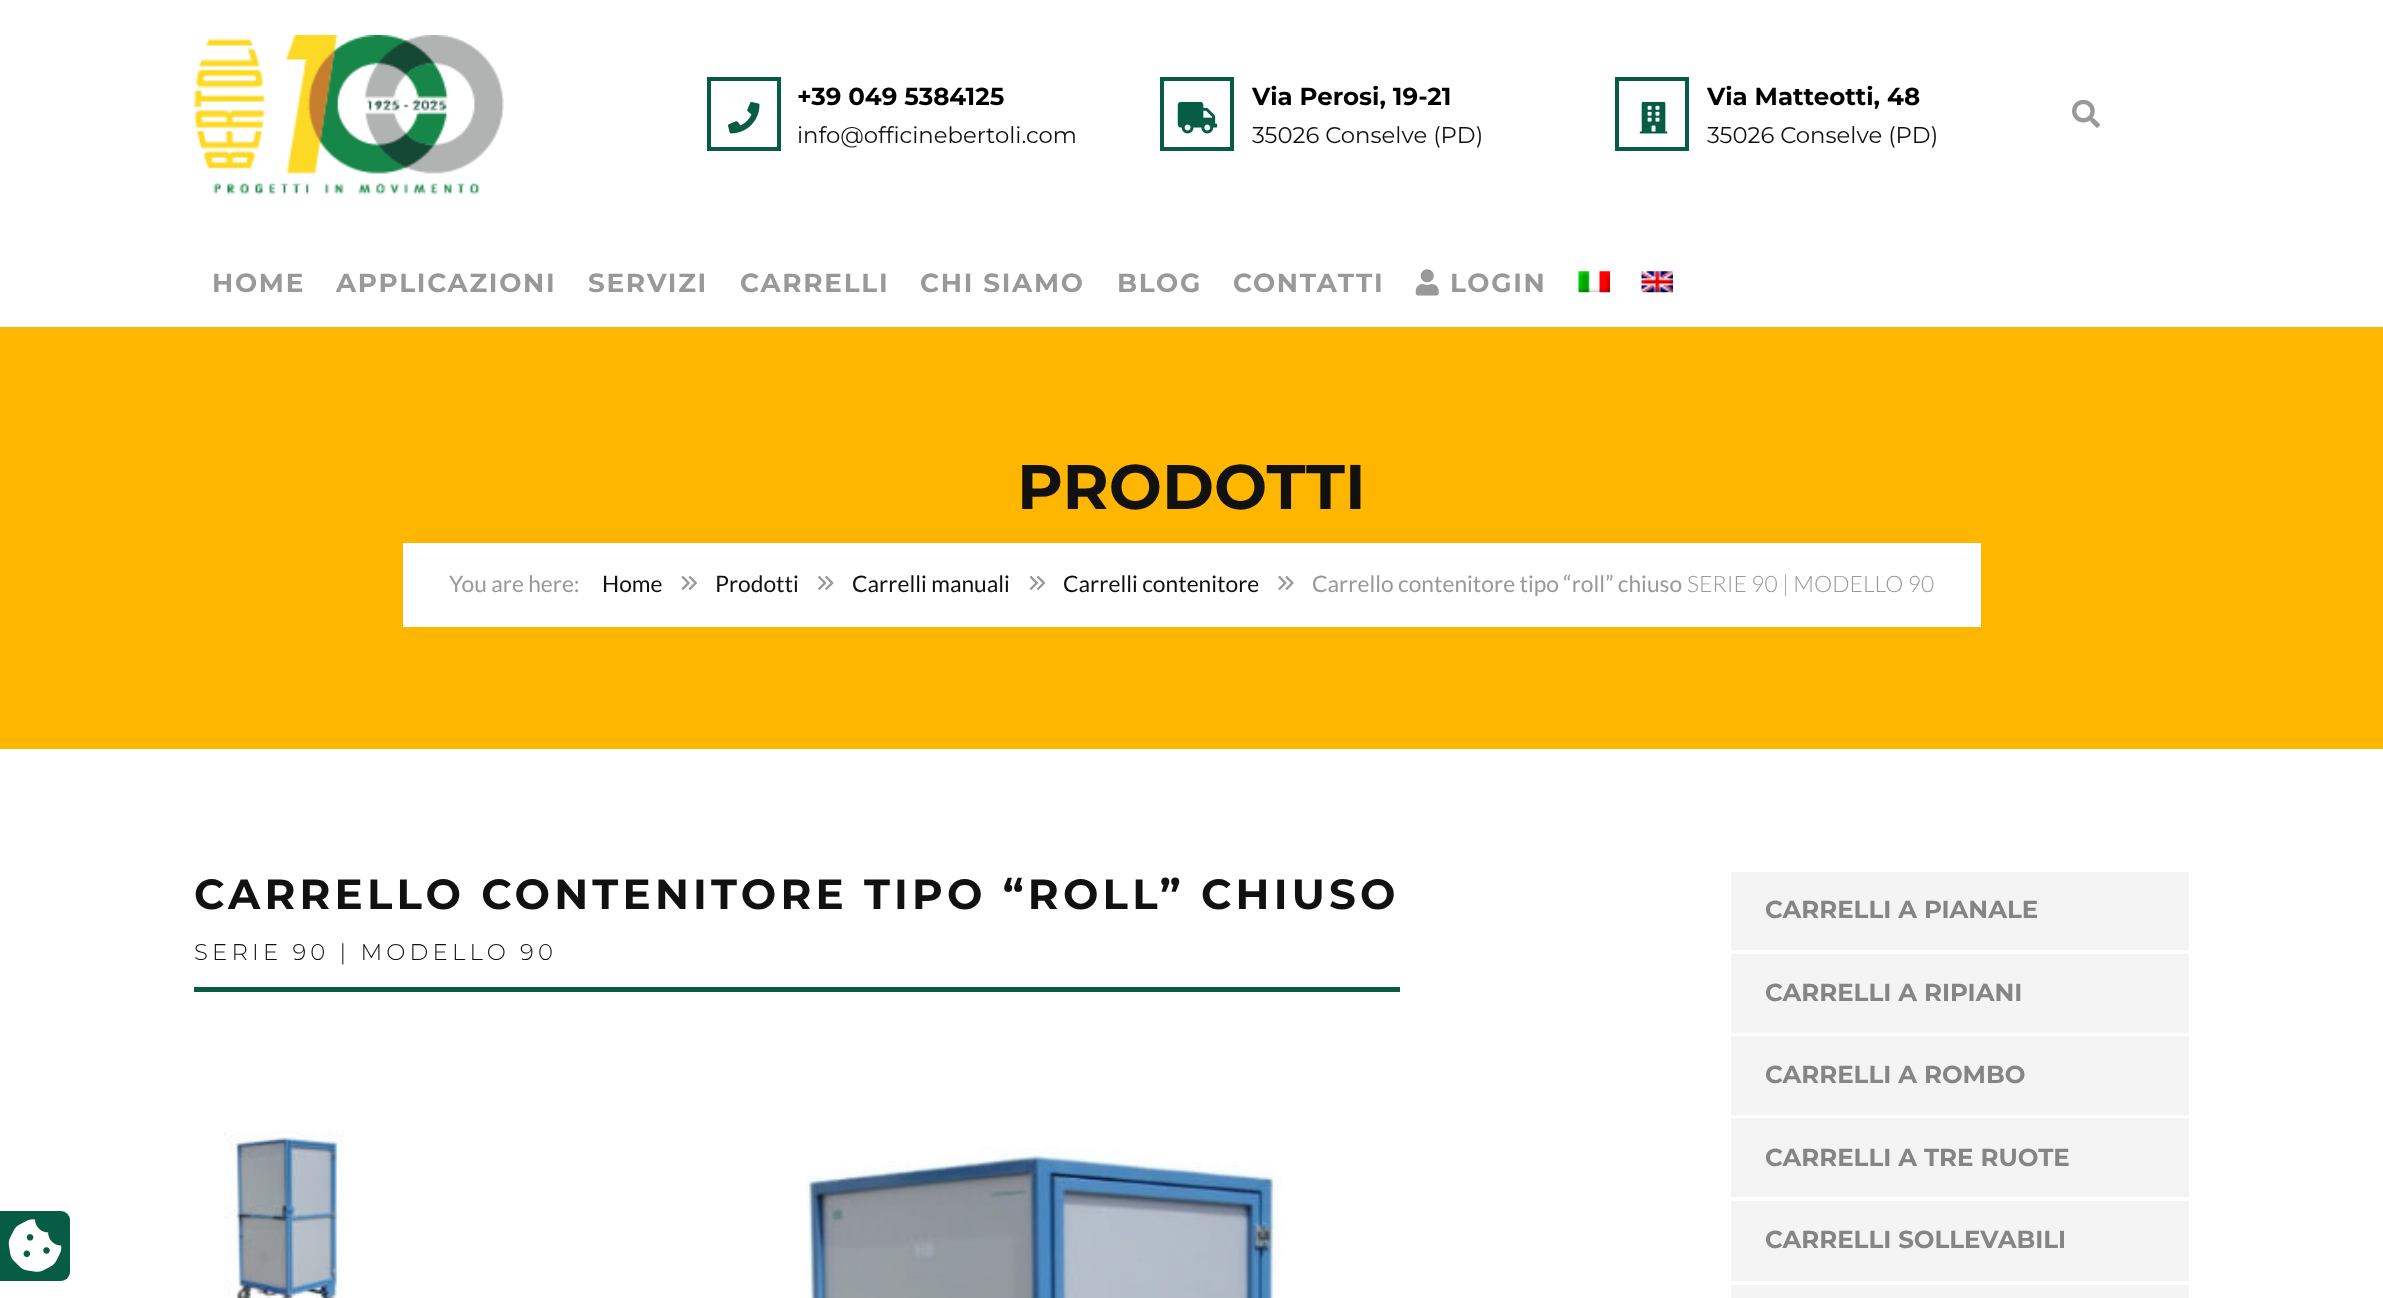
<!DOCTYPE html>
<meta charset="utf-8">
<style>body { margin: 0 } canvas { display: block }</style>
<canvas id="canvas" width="2383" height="1298"></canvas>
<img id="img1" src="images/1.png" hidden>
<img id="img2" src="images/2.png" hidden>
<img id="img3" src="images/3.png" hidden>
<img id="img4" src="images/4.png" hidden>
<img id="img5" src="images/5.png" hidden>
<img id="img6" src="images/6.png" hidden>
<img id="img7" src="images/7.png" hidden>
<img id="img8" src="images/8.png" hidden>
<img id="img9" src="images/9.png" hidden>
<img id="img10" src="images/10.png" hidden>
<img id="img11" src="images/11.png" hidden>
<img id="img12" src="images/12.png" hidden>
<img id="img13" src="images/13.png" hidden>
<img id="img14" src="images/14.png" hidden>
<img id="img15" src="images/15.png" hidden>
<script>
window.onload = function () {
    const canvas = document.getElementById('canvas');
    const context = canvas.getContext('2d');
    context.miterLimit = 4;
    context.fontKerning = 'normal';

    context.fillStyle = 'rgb(255, 255, 255)';
    context.fillRect(0, 0, 2383, 1298);
    context.fillStyle = 'rgb(6, 92, 68)';
    context.beginPath();
    context.roundRect(0, 1211, 70, 70, [0, 9, 9, 0]);
    context.fill();
    context.drawImage(document.getElementById('img1'), 8, 1219, 54, 53);
    context.drawImage(document.getElementById('img2'), 194, 35, 310, 160);
    context.strokeStyle = 'rgb(6, 92, 68)';
    context.lineWidth = 4;
    context.strokeRect(709, 79, 70, 70);
    context.drawImage(document.getElementById('img3'), 728, 102, 32, 32);
    context.strokeRect(1162, 79, 70, 70);
    context.drawImage(document.getElementById('img4'), 1177, 101, 41, 33);
    context.strokeRect(1617, 79, 70, 70);
    context.drawImage(document.getElementById('img5'), 1639, 101, 29, 33);
    context.drawImage(document.getElementById('img6'), 2072, 100, 28, 28);
    context.drawImage(document.getElementById('img7'), 1415, 269, 24, 27);
    context.drawImage(document.getElementById('img8'), 1578, 271, 32, 22);
    context.drawImage(document.getElementById('img9'), 1641, 271, 32, 22);
    context.fillStyle = 'rgb(255, 182, 0)';
    context.fillRect(0, 327, 2383, 422);
    context.fillStyle = 'rgb(255, 255, 255)';
    context.fillRect(403, 543, 1578, 84);
    context.drawImage(document.getElementById('img10'), 681, 576, 16, 14);
    context.drawImage(document.getElementById('img11'), 818, 575, 16, 15);
    context.drawImage(document.getElementById('img12'), 1029, 575, 17, 15);
    context.drawImage(document.getElementById('img13'), 1278, 575, 16, 15);
    context.fillStyle = 'rgb(6, 92, 68)';
    context.fillRect(194, 987, 1206, 5);
    context.drawImage(document.getElementById('img14'), 224, 1130, 121, 168);
    context.drawImage(document.getElementById('img15'), 806, 1147, 476, 151);
    context.fillStyle = 'rgb(244, 244, 244)';
    context.fillRect(1731, 872, 458, 78);
    context.fillRect(1731, 954, 458, 79);
    context.fillRect(1731, 1036, 458, 79);
    context.fillRect(1731, 1118, 458, 79);
    context.fillRect(1731, 1201, 458, 80);
    context.fillRect(1731, 1285, 458, 13);
    context.font = 'bold 24.5px Montserrat';
    context.fillStyle = 'rgb(0, 0, 0)';
    context.fillText('+39 049 5384125', 797, 105);
    context.font = '22.75px Montserrat';
    context.fillStyle = 'rgb(17, 17, 17)';
    context.fillText('info@officinebertoli.com', 797, 143);
    context.font = 'bold 24.5px Montserrat';
    context.fillStyle = 'rgb(0, 0, 0)';
    context.fillText('Via Perosi, 19-21', 1252, 105);
    context.font = '22.75px Montserrat';
    context.fillStyle = 'rgb(17, 17, 17)';
    context.fillText('35026 Conselve (PD)', 1252, 143);
    context.font = 'bold 24.5px Montserrat';
    context.fillStyle = 'rgb(0, 0, 0)';
    context.fillText('Via Matteotti, 48', 1707, 105);
    context.font = '22.75px Montserrat';
    context.fillStyle = 'rgb(17, 17, 17)';
    context.fillText('35026 Conselve (PD)', 1707, 143);
    context.letterSpacing = '1.75px';
    context.font = 'bold 26.25px Montserrat';
    context.fillStyle = 'rgb(153, 153, 153)';
    context.fillText('HOME', 212, 292);
    context.fillText('APPLICAZIONI', 336, 292);
    context.fillText('SERVIZI', 588, 292);
    context.fillText('CARRELLI', 740, 292);
    context.fillText('CHI SIAMO', 920, 292);
    context.fillText('BLOG', 1117, 292);
    context.fillText('CONTATTI', 1233, 292);
    context.fillText('LOGIN', 1450, 292);
    context.letterSpacing = '0px';
    context.font = 'bold 63px Montserrat';
    context.fillStyle = 'rgb(17, 17, 17)';
    context.fillText('PRODOTTI', 1017, 509);
    context.font = '22.75px Lato';
    context.fillStyle = 'rgb(153, 153, 153)';
    context.fillText('You are here:', 449, 592);
    context.fillStyle = 'rgb(17, 17, 17)';
    context.fillText('Home', 602, 592);
    context.fillText('Prodotti', 715, 592);
    context.fillText('Carrelli manuali', 852, 592);
    context.fillText('Carrelli contenitore', 1063, 592);
    context.fillStyle = 'rgb(153, 153, 153)';
    context.fillText('Carrello contenitore tipo “roll” chiuso', 1312, 592);
    context.font = '300 22.75px Lato';
    context.fillText('SERIE 90 | MODELLO 90', 1687, 592);
    context.letterSpacing = '4.2px';
    context.font = 'bold 42px Montserrat';
    context.fillStyle = 'rgb(17, 17, 17)';
    context.fillText('CARRELLO CONTENITORE TIPO “ROLL” CHIUSO', 194, 909);
    context.font = '300 22.75px Montserrat';
    context.fillText('SERIE 90 | MODELLO 90', 194, 960);
    context.letterSpacing = '0px';
    context.font = 'bold 24.5px Montserrat';
    context.fillStyle = 'rgb(133, 133, 133)';
    context.fillText('CARRELLI A PIANALE', 1765, 918);
    context.fillText('CARRELLI A RIPIANI', 1765, 1001);
    context.fillText('CARRELLI A ROMBO', 1765, 1083);
    context.fillText('CARRELLI A TRE RUOTE', 1765, 1166);
    context.fillText('CARRELLI SOLLEVABILI', 1765, 1248);
};
</script>
